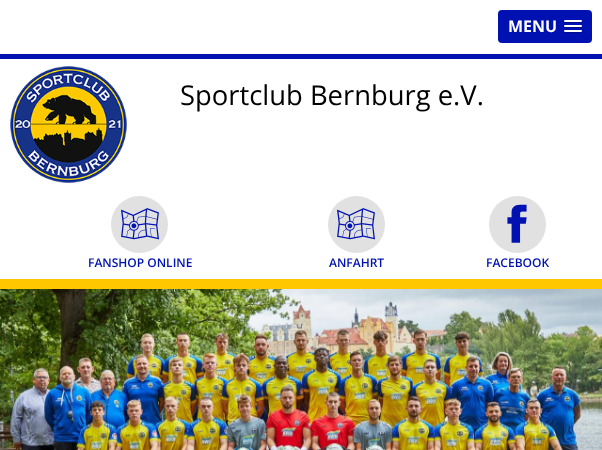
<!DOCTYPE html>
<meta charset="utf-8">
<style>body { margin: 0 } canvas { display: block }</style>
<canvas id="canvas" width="602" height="450"></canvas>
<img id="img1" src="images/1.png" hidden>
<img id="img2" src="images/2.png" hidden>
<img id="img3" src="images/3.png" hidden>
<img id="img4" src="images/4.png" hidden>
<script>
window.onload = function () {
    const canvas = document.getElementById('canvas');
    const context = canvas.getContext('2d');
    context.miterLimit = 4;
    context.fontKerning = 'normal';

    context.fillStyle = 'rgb(255, 255, 255)';
    context.fillRect(0, 0, 602, 450);
    context.fillStyle = 'rgb(0, 17, 178)';
    context.fillRect(0, 54, 602, 5);
    context.beginPath();
    context.roundRect(498, 10, 94, 33, 4);
    context.fill();
    context.fillStyle = 'rgb(0, 13, 134)';
    context.beginPath();
    context.moveTo(564, 21.5);
    context.bezierCurveTo(563, 23.5, 567.5, 23, 567.5, 23);
    context.lineTo(578.5, 23);
    context.bezierCurveTo(578.5, 23, 583, 23.5, 582, 21.5);
    context.bezierCurveTo(581, 22.5, 574.5, 22, 573, 22);
    context.bezierCurveTo(571.5, 22, 565, 22.5, 564, 21.5);
    context.closePath();
    context.fill();
    context.fillStyle = 'rgb(255, 255, 255)';
    context.beginPath();
    context.roundRect(564, 20, 18, 2, 1);
    context.fill();
    context.fillStyle = 'rgb(0, 13, 134)';
    context.beginPath();
    context.moveTo(564, 26.5);
    context.bezierCurveTo(563, 28.5, 567.5, 28, 567.5, 28);
    context.lineTo(578.5, 28);
    context.bezierCurveTo(578.5, 28, 583, 28.5, 582, 26.5);
    context.bezierCurveTo(581, 27.5, 574.5, 27, 573, 27);
    context.bezierCurveTo(571.5, 27, 565, 27.5, 564, 26.5);
    context.closePath();
    context.fill();
    context.fillStyle = 'rgb(255, 255, 255)';
    context.beginPath();
    context.roundRect(564, 25, 18, 2, 1);
    context.fill();
    context.fillStyle = 'rgb(0, 13, 134)';
    context.beginPath();
    context.moveTo(564, 31.5);
    context.bezierCurveTo(563, 33.5, 567.5, 33, 567.5, 33);
    context.lineTo(578.5, 33);
    context.bezierCurveTo(578.5, 33, 583, 33.5, 582, 31.5);
    context.bezierCurveTo(581, 32.5, 574.5, 32, 573, 32);
    context.bezierCurveTo(571.5, 32, 565, 32.5, 564, 31.5);
    context.closePath();
    context.fill();
    context.fillStyle = 'rgb(255, 255, 255)';
    context.beginPath();
    context.roundRect(564, 30, 18, 2, 1);
    context.fill();
    context.fillStyle = 'rgb(255, 199, 0)';
    context.fillRect(0, 279, 602, 10);
    context.drawImage(document.getElementById('img1'), 10, 66, 117, 117);
    context.fillStyle = 'rgb(225, 225, 225)';
    context.beginPath();
    context.arc(139.5, 224.5, 28.5, 0, 2 * Math.PI);
    context.fill();
    context.drawImage(document.getElementById('img2'), 121, 208, 38, 32);
    context.beginPath();
    context.arc(356.5, 224.5, 28.5, 0, 2 * Math.PI);
    context.fill();
    context.drawImage(document.getElementById('img2'), 337, 208, 38, 32);
    context.beginPath();
    context.arc(517.5, 224.5, 28.5, 0, 2 * Math.PI);
    context.fill();
    context.drawImage(document.getElementById('img3'), 507, 204, 20, 39);
    context.drawImage(document.getElementById('img4'), 0, 289, 602, 161);
    context.font = 'bold 16px Open Sans';
    context.fillStyle = 'rgb(255, 255, 255)';
    context.fillText('MENU', 508, 32);
    context.font = '27.4px Open Sans';
    context.fillStyle = 'rgb(0, 0, 0)';
    context.fillText('Sportclub Bernburg e.V.', 180, 105);
    context.font = '600 12px Open Sans';
    context.fillStyle = 'rgb(0, 17, 178)';
    context.fillText('FANSHOP ONLINE', 88, 267);
    context.fillText('ANFAHRT', 329, 267);
    context.fillText('FACEBOOK', 486, 267);
};
</script>
